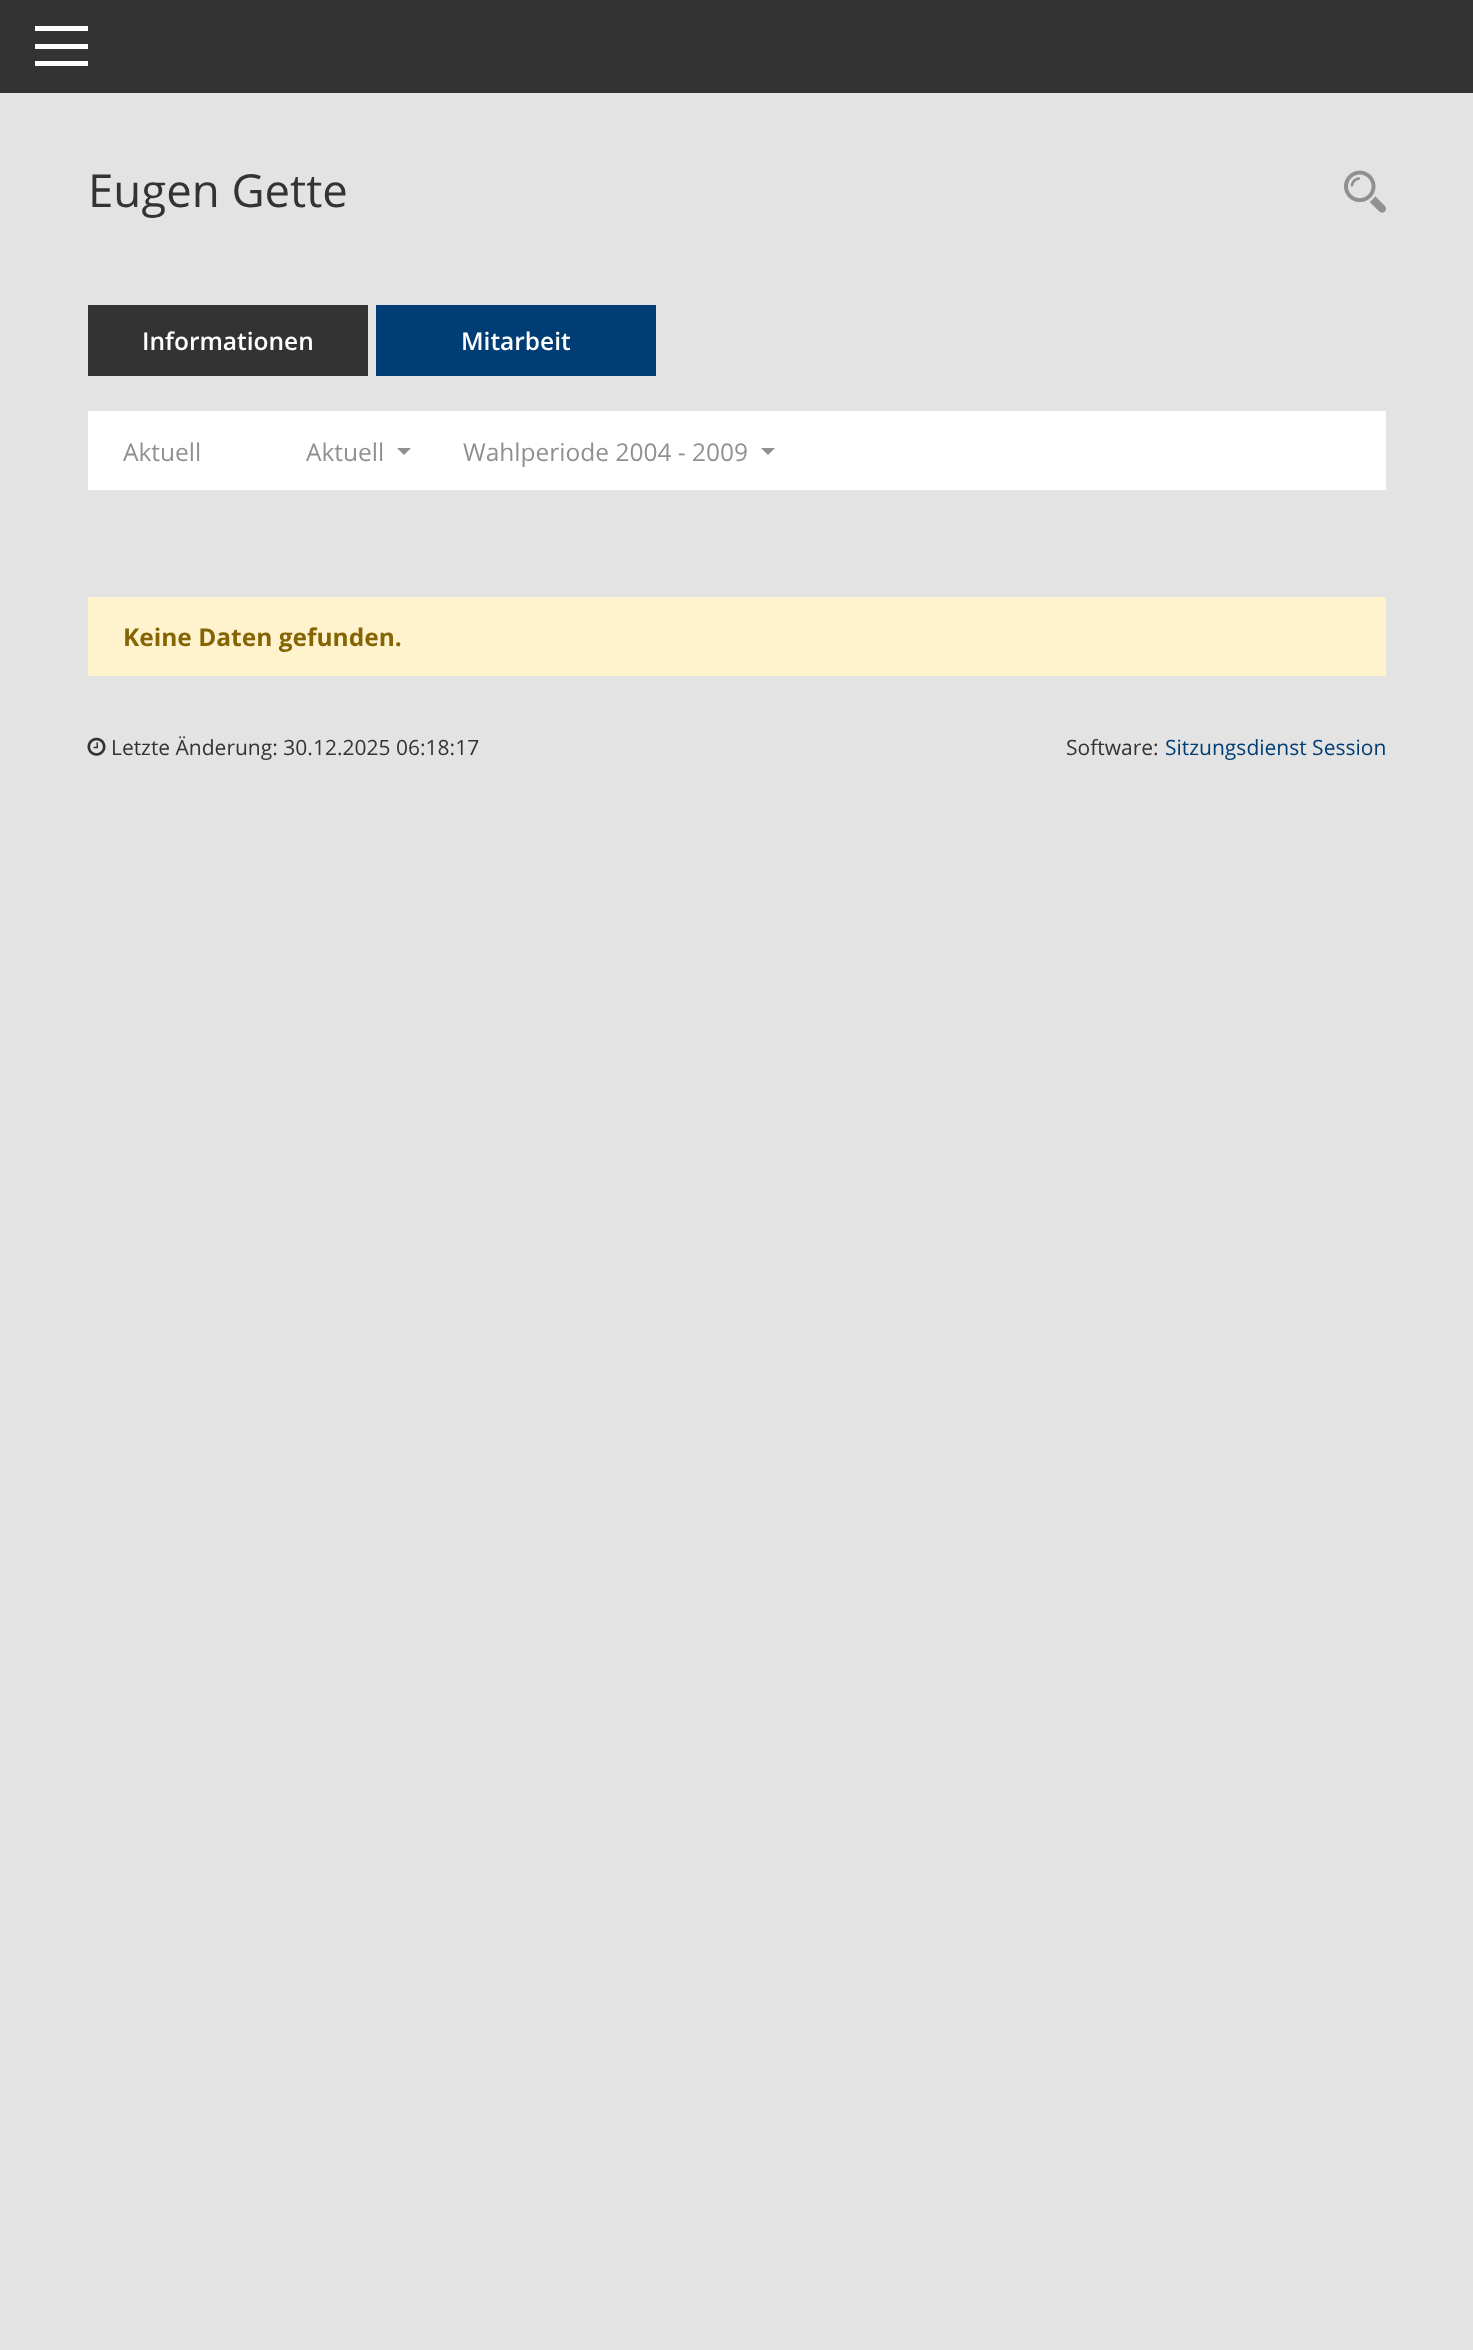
<!DOCTYPE html>
<meta charset="utf-8">
<style>body { margin: 0 } canvas { display: block }</style>
<canvas id="canvas" width="1473" height="2350"></canvas>
<img id="img1" src="images/1.png" hidden>
<img id="img2" src="images/2.png" hidden>
<script>
window.onload = function () {
    const canvas = document.getElementById('canvas');
    const context = canvas.getContext('2d');
    context.miterLimit = 4;
    context.fontKerning = 'normal';

    context.fillStyle = 'rgb(227, 227, 227)';
    context.fillRect(0, 0, 1473, 2350);
    context.fillStyle = 'rgb(51, 51, 51)';
    context.fillRect(0, 0, 1473, 93);
    context.fillStyle = 'rgb(255, 255, 255)';
    context.fillRect(35, 26, 53, 5);
    context.fillRect(35, 44, 53, 5);
    context.fillRect(35, 61, 53, 5);
    context.drawImage(document.getElementById('img1'), 1344, 170, 42, 43);
    context.fillStyle = 'rgb(222, 226, 230)';
    context.fillRect(88, 375, 1298, 2);
    context.fillStyle = 'rgb(51, 51, 51)';
    context.fillRect(88, 305, 280, 71);
    context.fillStyle = 'rgb(0, 61, 116)';
    context.fillRect(376, 305, 280, 71);
    context.fillStyle = 'rgb(255, 255, 255)';
    context.fillRect(88, 411, 1298, 79);
    context.fillStyle = 'rgb(144, 144, 144)';
    context.beginPath();
    context.moveTo(397, 448);
    context.lineTo(411, 448);
    context.lineTo(404, 455);
    context.closePath();
    context.fill();
    context.beginPath();
    context.moveTo(761, 448);
    context.lineTo(775, 448);
    context.lineTo(768, 455);
    context.closePath();
    context.fill();
    context.fillStyle = 'rgb(255, 243, 205)';
    context.fillRect(88, 597, 1298, 79);
    context.drawImage(document.getElementById('img2'), 87, 737, 19, 19);
    context.font = '45.5px Open Sans';
    context.fillStyle = 'rgb(51, 51, 51)';
    context.fillText('Eugen Gette', 88, 207);
    context.font = '600 24.5px Open Sans';
    context.fillStyle = 'rgb(255, 255, 255)';
    context.fillText('Informationen', 142, 350);
    context.fillText('Mitarbeit', 461, 350);
    context.font = '24.5px Open Sans';
    context.fillStyle = 'rgb(144, 144, 144)';
    context.fillText('Aktuell', 123, 461);
    context.fillText('Aktuell', 306, 461);
    context.fillText('Wahlperiode 2004 - 2009', 463, 461);
    context.font = 'bold 24.5px Open Sans';
    context.fillStyle = 'rgb(133, 100, 4)';
    context.fillText('Keine Daten gefunden.', 123, 646);
    context.font = '21px Open Sans';
    context.fillStyle = 'rgb(51, 51, 51)';
    context.fillText('Letzte Änderung: 30.12.2025 06:18:17', 111, 755);
    context.fillText('Software:', 1066, 755);
    context.fillStyle = 'rgb(0, 61, 116)';
    context.fillText('Sitzungsdienst Session', 1165, 755);
};
</script>
